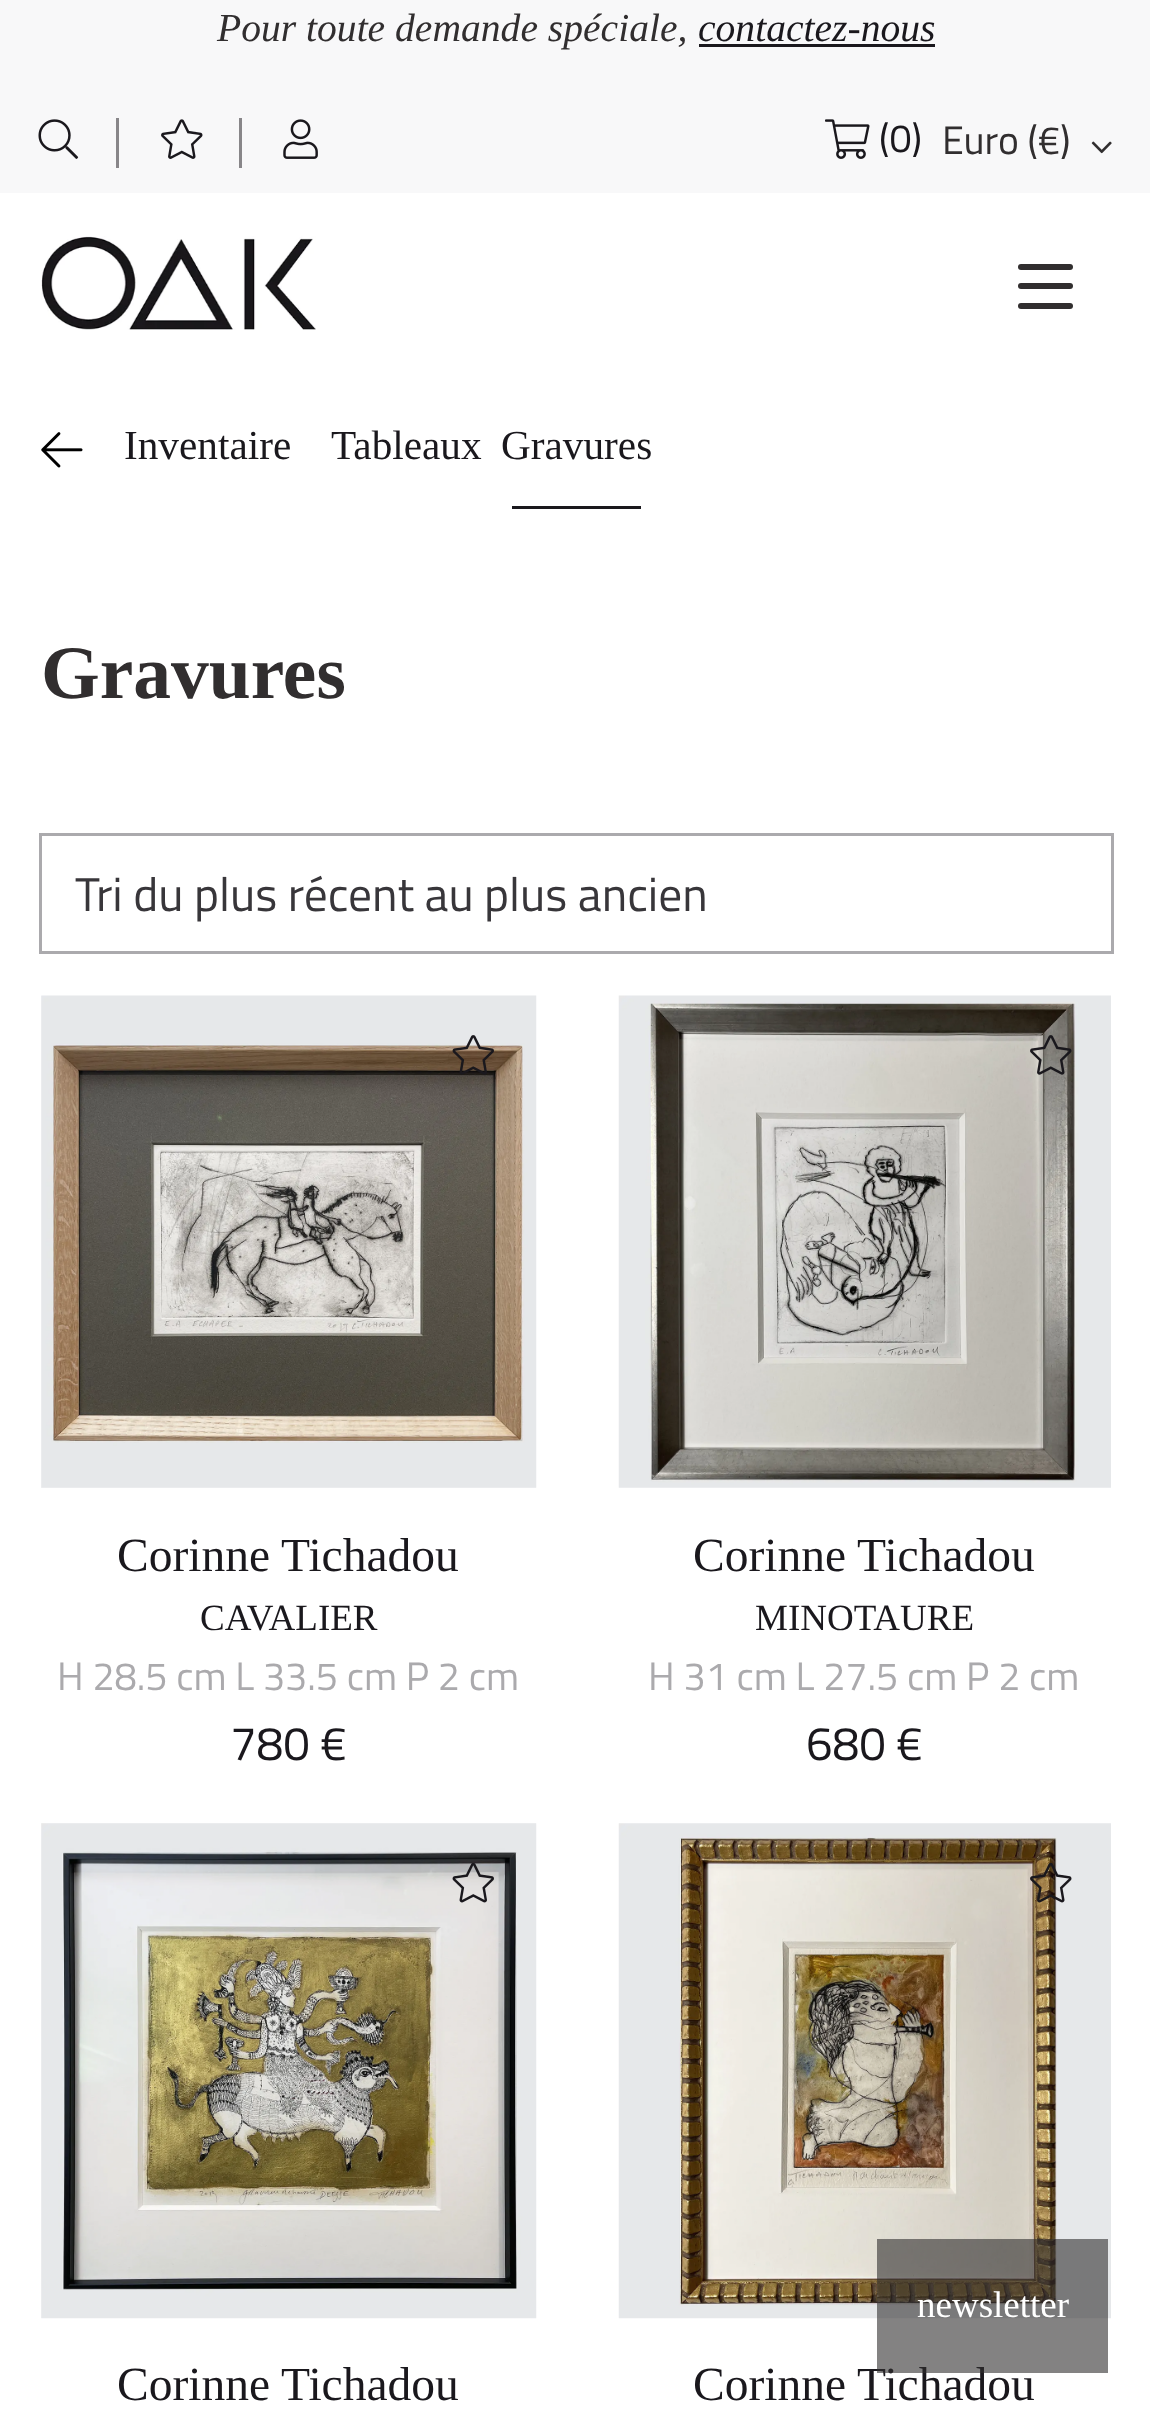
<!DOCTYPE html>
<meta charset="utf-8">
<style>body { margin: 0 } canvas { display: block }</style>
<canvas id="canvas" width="1150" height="2416"></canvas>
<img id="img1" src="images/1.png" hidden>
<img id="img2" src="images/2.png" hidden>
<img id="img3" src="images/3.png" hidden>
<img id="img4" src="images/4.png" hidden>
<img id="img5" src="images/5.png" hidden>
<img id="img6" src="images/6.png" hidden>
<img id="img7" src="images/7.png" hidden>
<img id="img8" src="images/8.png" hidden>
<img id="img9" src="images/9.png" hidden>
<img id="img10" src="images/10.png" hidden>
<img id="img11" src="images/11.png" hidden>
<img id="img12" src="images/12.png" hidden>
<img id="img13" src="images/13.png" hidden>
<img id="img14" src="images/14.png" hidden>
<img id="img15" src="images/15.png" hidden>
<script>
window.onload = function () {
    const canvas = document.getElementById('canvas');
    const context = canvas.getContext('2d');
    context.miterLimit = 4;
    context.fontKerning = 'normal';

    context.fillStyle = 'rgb(255, 255, 255)';
    context.fillRect(0, 0, 1150, 2416);
    context.fillStyle = 'rgb(248, 248, 249)';
    context.fillRect(0, 0, 1150, 193);
    context.fillStyle = 'rgb(26, 24, 29)';
    context.fillRect(699, 44, 236, 3);
    context.drawImage(document.getElementById('img1'), 38, 119, 41, 40);
    context.fillStyle = 'rgb(136, 134, 137)';
    context.fillRect(116, 118, 3, 50);
    context.drawImage(document.getElementById('img2'), 161, 119, 42, 40);
    context.fillRect(239, 118, 3, 50);
    context.drawImage(document.getElementById('img3'), 283, 119, 35, 40);
    context.drawImage(document.getElementById('img4'), 825, 119, 45, 40);
    context.drawImage(document.getElementById('img5'), 1091, 141, 21, 13);
    context.drawImage(document.getElementById('img6'), 41, 236, 275, 94);
    context.fillStyle = 'rgb(49, 46, 47)';
    context.beginPath();
    context.roundRect(1018, 283, 55, 6, 3);
    context.fill();
    context.beginPath();
    context.roundRect(1018, 264, 55, 6, 3);
    context.fill();
    context.beginPath();
    context.roundRect(1018, 303, 55, 6, 3);
    context.fill();
    context.drawImage(document.getElementById('img7'), 41, 432, 42, 36);
    context.fillStyle = 'rgb(26, 24, 29)';
    context.fillRect(512, 506, 129, 3);
    context.strokeStyle = 'rgb(171, 170, 173)';
    context.lineWidth = 3;
    context.strokeRect(40.5, 834.5, 1072, 118);
    context.fillStyle = 'rgb(248, 248, 249)';
    context.fillRect(41, 996, 495, 492);
    context.drawImage(document.getElementById('img8'), 41, 995, 496, 493);
    context.drawImage(document.getElementById('img9'), 452, 1035, 42, 40);
    context.drawImage(document.getElementById('img10'), 618, 995, 493, 493);
    context.drawImage(document.getElementById('img11'), 1030, 1035, 42, 40);
    context.fillRect(41, 1823, 495, 495);
    context.drawImage(document.getElementById('img12'), 41, 1823, 496, 496);
    context.drawImage(document.getElementById('img13'), 452, 1863, 42, 40);
    context.drawImage(document.getElementById('img14'), 618, 1823, 493, 496);
    context.drawImage(document.getElementById('img15'), 1030, 1862, 42, 41);
    context.font = 'italic 39.6px Liberation Serif';
    context.fillStyle = 'rgb(49, 46, 47)';
    context.fillText('Pour toute demande spéciale,', 217, 41);
    context.fillStyle = 'rgb(26, 24, 29)';
    context.fillText('contactez-nous', 698, 41);
    context.font = '39.6px Titillium Web';
    context.fillText('(0)', 879, 152);
    context.fillStyle = 'rgb(49, 46, 47)';
    context.fillText('Euro (€)', 942, 154);
    context.font = '41.25px Liberation Serif';
    context.fillStyle = 'rgb(26, 24, 29)';
    context.fillText('Inventaire', 124, 459);
    context.fillText('Tableaux', 331, 459);
    context.fillText('Gravures', 501, 459);
    context.font = 'bold 75.5px Liberation Serif';
    context.fillStyle = 'rgb(49, 46, 47)';
    context.fillText('Gravures', 41, 698);
    context.font = '47.5px Titillium Web';
    context.fillStyle = 'rgb(56, 54, 58)';
    context.fillText('Tri du plus récent au plus ancien', 75, 911);
    context.font = '47.5px Liberation Serif';
    context.fillStyle = 'rgb(26, 24, 29)';
    context.fillText('Corinne Tichadou', 117, 1571);
    context.font = '37px Liberation Serif';
    context.fillText('CAVALIER', 200, 1630);
    context.font = '39.6px Titillium Web';
    context.fillStyle = 'rgb(171, 170, 173)';
    context.fillText('H 28.5 cm L 33.5 cm P 2 cm', 57, 1690);
    context.font = '47.5px Titillium Web';
    context.fillStyle = 'rgb(26, 24, 29)';
    context.fillText('780 €', 230, 1760);
    context.font = '47.5px Liberation Serif';
    context.fillText('Corinne Tichadou', 693, 1571);
    context.font = '37px Liberation Serif';
    context.fillText('MINOTAURE', 755, 1630);
    context.font = '39.6px Titillium Web';
    context.fillStyle = 'rgb(171, 170, 173)';
    context.fillText('H 31 cm L 27.5 cm P 2 cm', 648, 1690);
    context.font = '47.5px Titillium Web';
    context.fillStyle = 'rgb(26, 24, 29)';
    context.fillText('680 €', 806, 1760);
    context.font = '47.5px Liberation Serif';
    context.fillText('Corinne Tichadou', 117, 2400);
    context.fillText('Corinne Tichadou', 693, 2400);
    context.fillStyle = 'rgba(49, 46, 47, 0.6)';
    context.fillRect(877, 2239, 231, 134);
    context.font = '37px Liberation Serif';
    context.fillStyle = 'rgb(255, 255, 255)';
    context.fillText('newsletter', 917, 2317);
};
</script>
